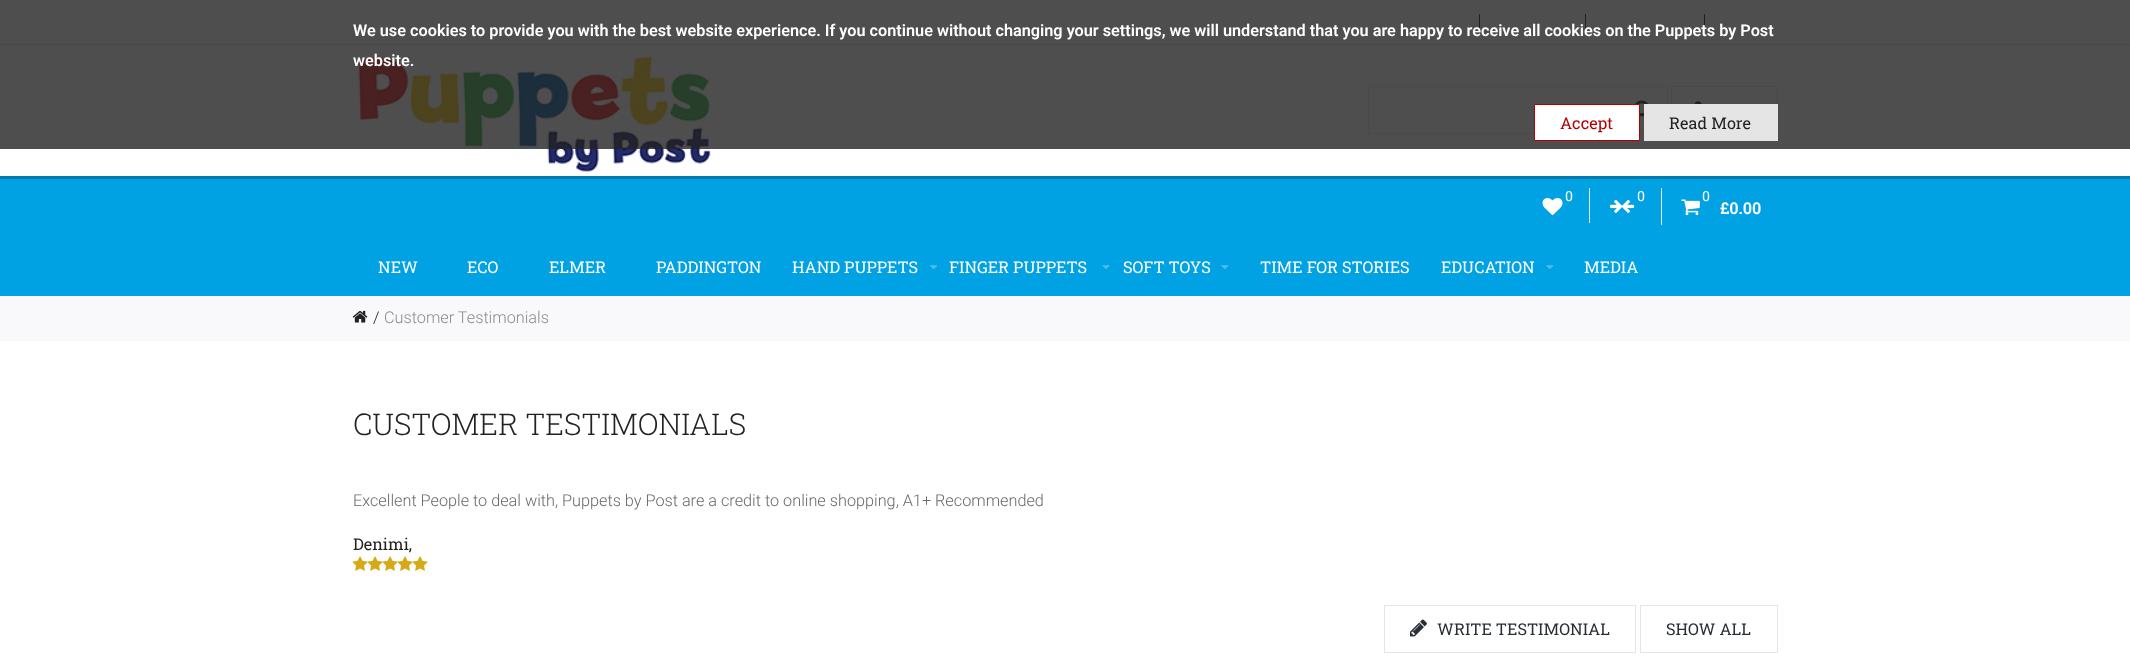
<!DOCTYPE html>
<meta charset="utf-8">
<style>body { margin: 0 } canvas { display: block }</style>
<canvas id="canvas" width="2130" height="656"></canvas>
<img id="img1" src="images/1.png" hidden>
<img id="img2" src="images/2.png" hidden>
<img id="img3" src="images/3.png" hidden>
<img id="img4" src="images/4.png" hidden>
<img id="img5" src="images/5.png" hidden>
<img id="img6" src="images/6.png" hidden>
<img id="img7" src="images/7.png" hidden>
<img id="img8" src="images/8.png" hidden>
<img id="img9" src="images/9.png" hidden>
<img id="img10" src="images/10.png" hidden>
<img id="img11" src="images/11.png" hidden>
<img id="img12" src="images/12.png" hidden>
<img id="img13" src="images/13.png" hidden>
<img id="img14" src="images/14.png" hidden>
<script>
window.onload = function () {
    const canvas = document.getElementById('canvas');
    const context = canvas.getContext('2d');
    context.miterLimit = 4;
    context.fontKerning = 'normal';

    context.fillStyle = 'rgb(255, 255, 255)';
    context.fillRect(0, 0, 2130, 656);
    context.fillStyle = 'rgb(229, 229, 229)';
    context.fillRect(0, 44, 2130, 1);
    context.fillStyle = 'rgb(34, 34, 34)';
    context.fillRect(1479, 14, 1, 15);
    context.fillRect(1585, 14, 1, 15);
    context.fillRect(1704, 14, 1, 15);
    context.drawImage(document.getElementById('img1'), 358, 56, 353, 116);
    context.strokeStyle = 'rgb(233, 233, 233)';
    context.strokeRect(1368.5, 86.5, 299, 47);
    context.drawImage(document.getElementById('img2'), 1635, 100, 13, 17);
    context.strokeStyle = 'rgb(229, 229, 229)';
    context.strokeRect(1671.5, 86.5, 106, 47);
    context.drawImage(document.getElementById('img3'), 1694, 101, 8, 3);
    context.fillStyle = 'rgba(34, 34, 34, 0.8)';
    context.fillRect(0, 0, 2130, 149);
    context.fillStyle = 'rgb(255, 255, 255)';
    context.beginPath();
    context.rect(1534.5, 104.5, 105, 36);
    context.fill();
    context.strokeStyle = 'rgb(182, 0, 0)';
    context.stroke();
    context.fillStyle = 'rgb(229, 229, 229)';
    context.fillRect(1644, 104, 134, 37);
    context.fillStyle = 'rgb(0, 162, 227)';
    context.fillRect(0, 179, 2130, 117);
    context.fillStyle = 'rgb(2, 122, 174)';
    context.fillRect(0, 176, 2130, 3);
    context.drawImage(document.getElementById('img4'), 1542, 198, 21, 18);
    context.fillStyle = 'rgb(229, 229, 229)';
    context.fillRect(1589, 188, 1, 35);
    context.drawImage(document.getElementById('img5'), 1610, 199, 13, 14);
    context.drawImage(document.getElementById('img6'), 1622, 199, 13, 14);
    context.fillRect(1661, 188, 1, 37);
    context.drawImage(document.getElementById('img7'), 1681, 199, 19, 17);
    context.drawImage(document.getElementById('img8'), 930, 265, 7, 5);
    context.drawImage(document.getElementById('img9'), 1102, 265, 8, 4);
    context.drawImage(document.getElementById('img10'), 1221, 265, 8, 4);
    context.drawImage(document.getElementById('img10'), 1546, 265, 8, 4);
    context.fillStyle = 'rgb(249, 249, 251)';
    context.fillRect(0, 296, 2130, 45);
    context.drawImage(document.getElementById('img11'), 352, 310, 16, 13);
    context.drawImage(document.getElementById('img12'), 352, 556, 16, 15);
    context.drawImage(document.getElementById('img13'), 367, 556, 16, 15);
    context.drawImage(document.getElementById('img13'), 382, 556, 16, 15);
    context.drawImage(document.getElementById('img13'), 397, 556, 16, 15);
    context.drawImage(document.getElementById('img13'), 412, 556, 16, 15);
    context.strokeStyle = 'rgb(229, 229, 229)';
    context.strokeRect(1384.5, 605.5, 251, 47);
    context.drawImage(document.getElementById('img14'), 1410, 619, 17, 18);
    context.strokeRect(1640.5, 605.5, 137, 47);
    context.font = '600 16.25px Roboto';
    context.fillStyle = 'rgb(255, 255, 255)';
    context.fillText('We use cookies to provide you with the best website experience. If you continue without changing your settings, we will understand that you are happy to receive all cookies on the Puppets by Post', 353, 36);
    context.fillText('website.', 353, 66);
    context.font = '16.25px Roboto Slab';
    context.fillStyle = 'rgb(182, 0, 0)';
    context.fillText('Accept', 1560, 129);
    context.fillStyle = 'rgb(34, 34, 34)';
    context.fillText('Read More', 1669, 129);
    context.font = '14px Roboto Slab';
    context.fillStyle = 'rgb(255, 255, 255)';
    context.fillText('0', 1565, 201);
    context.fillText('0', 1637, 201);
    context.fillText('0', 1702, 201);
    context.font = '600 16.25px Roboto Slab';
    context.fillText('£0.00', 1720, 214);
    context.font = '16.25px Roboto Slab';
    context.fillText('NEW', 378, 273);
    context.fillText('ECO', 467, 273);
    context.fillText('ELMER', 549, 273);
    context.fillText('PADDINGTON', 656, 273);
    context.fillText('HAND PUPPETS', 792, 273);
    context.fillText('FINGER PUPPETS', 949, 273);
    context.fillText('SOFT TOYS', 1123, 273);
    context.fillText('TIME FOR STORIES', 1260, 273);
    context.fillText('EDUCATION', 1441, 273);
    context.fillText('MEDIA', 1584, 273);
    context.font = '300 16.25px Roboto';
    context.fillStyle = 'rgb(34, 34, 34)';
    context.fillText('/', 373, 323);
    context.fillStyle = 'rgb(140, 140, 140)';
    context.fillText('Customer Testimonials', 384, 323);
    context.font = '300 30px Roboto Slab';
    context.fillStyle = 'rgb(34, 34, 34)';
    context.fillText('CUSTOMER TESTIMONIALS', 353, 435);
    context.font = '300 16.25px Roboto';
    context.fillStyle = 'rgb(105, 105, 105)';
    context.fillText('Excellent People to deal with, Puppets by Post are a credit to online shopping, A1+ Recommended', 353, 506);
    context.font = '16.25px Roboto Slab';
    context.fillStyle = 'rgb(34, 34, 34)';
    context.fillText('Denimi,', 353, 550);
    context.fillStyle = 'rgb(41, 47, 56)';
    context.fillText('WRITE TESTIMONIAL', 1437, 635);
    context.fillText('SHOW ALL', 1666, 635);
};
</script>
